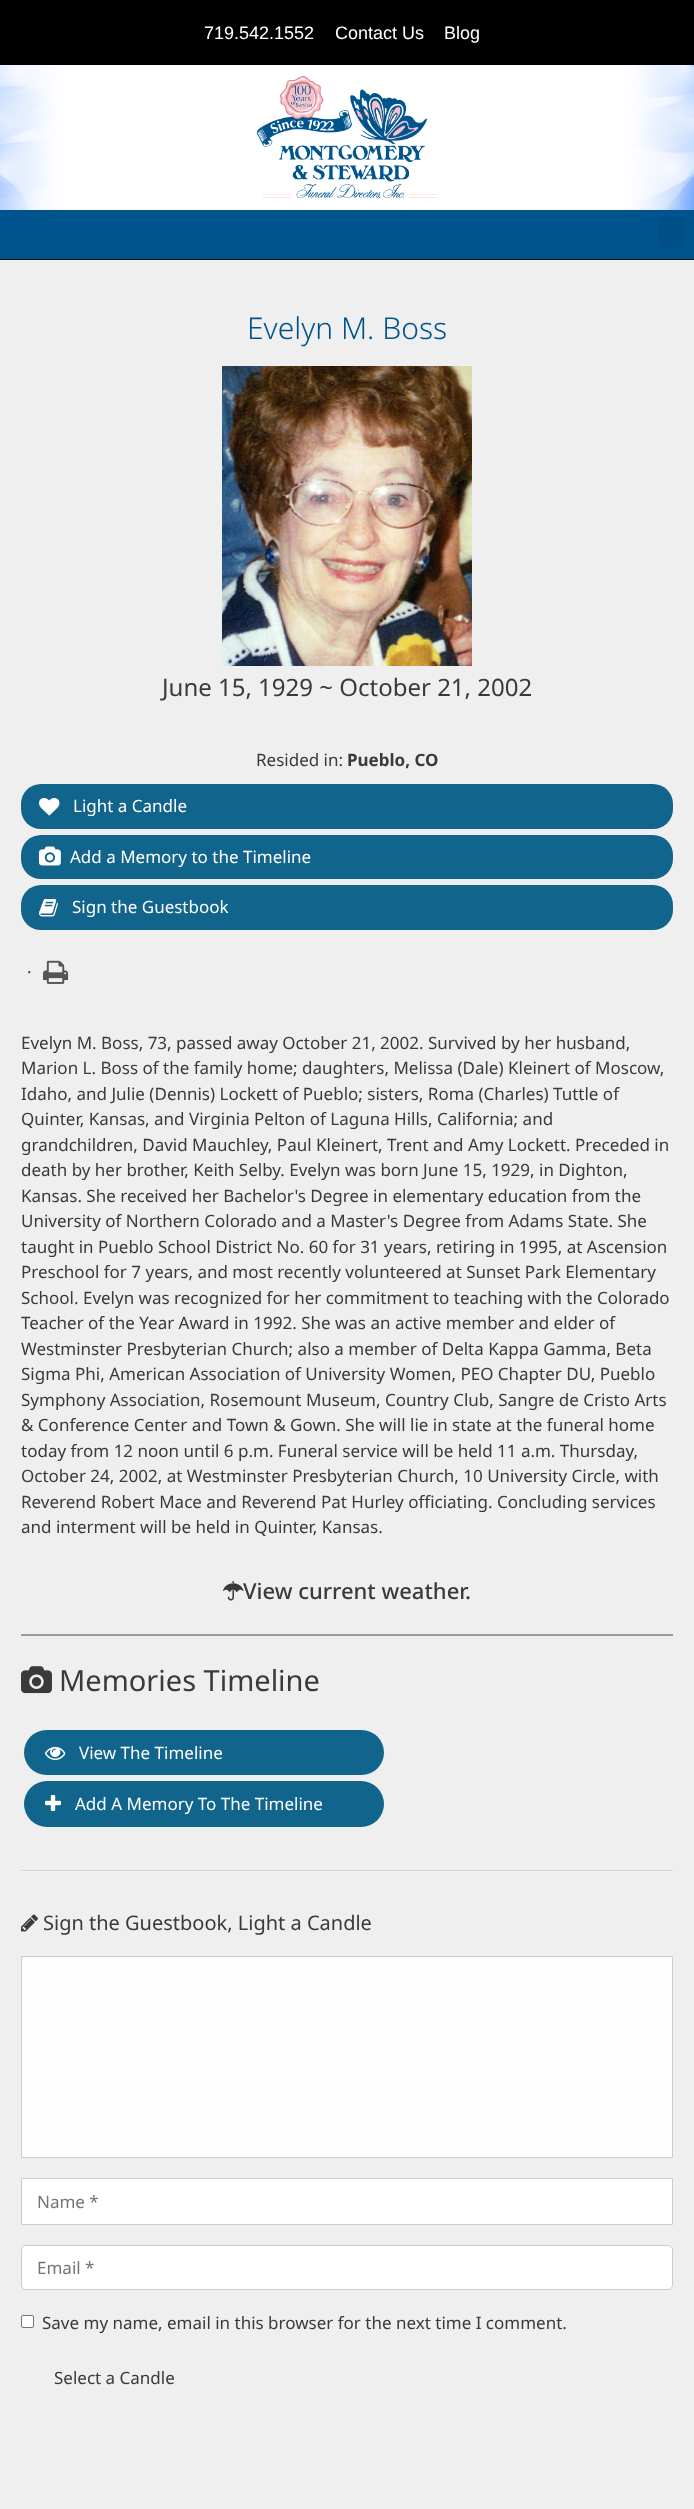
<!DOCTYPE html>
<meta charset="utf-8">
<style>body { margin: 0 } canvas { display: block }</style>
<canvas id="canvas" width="694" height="2509"></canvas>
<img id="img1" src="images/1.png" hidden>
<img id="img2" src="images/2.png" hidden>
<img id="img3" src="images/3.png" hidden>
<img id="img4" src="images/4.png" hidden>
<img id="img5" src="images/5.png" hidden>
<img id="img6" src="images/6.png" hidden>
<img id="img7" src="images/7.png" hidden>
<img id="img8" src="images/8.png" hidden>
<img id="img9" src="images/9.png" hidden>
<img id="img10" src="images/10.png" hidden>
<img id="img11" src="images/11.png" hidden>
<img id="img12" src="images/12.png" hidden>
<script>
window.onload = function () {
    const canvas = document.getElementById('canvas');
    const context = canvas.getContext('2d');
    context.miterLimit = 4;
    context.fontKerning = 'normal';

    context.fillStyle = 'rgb(239, 239, 239)';
    context.fillRect(0, 0, 694, 2509);
    context.fillStyle = 'rgb(0, 0, 0)';
    context.fillRect(0, 0, 694, 65);
    context.drawImage(document.getElementById('img1'), 0, 65, 694, 145);
    context.drawImage(document.getElementById('img2'), 256, 76, 182, 122);
    context.fillStyle = 'rgb(0, 84, 142)';
    context.fillRect(0, 210, 694, 49);
    context.fillStyle = 'rgb(12, 12, 12)';
    context.fillRect(0, 259, 694, 1);
    context.fillStyle = 'rgb(0, 80, 135)';
    context.beginPath();
    context.roundRect(658, 217, 26, 30, 3);
    context.fill();
    context.drawImage(document.getElementById('img3'), 222, 366, 250, 300);
    context.fillStyle = 'rgb(17, 100, 139)';
    context.beginPath();
    context.roundRect(21, 784, 652, 45, 20);
    context.fill();
    context.drawImage(document.getElementById('img4'), 39, 798, 21, 18);
    context.beginPath();
    context.roundRect(21, 835, 652, 44, 20);
    context.fill();
    context.drawImage(document.getElementById('img5'), 39, 846, 22, 20);
    context.beginPath();
    context.roundRect(21, 885, 652, 45, 20);
    context.fill();
    context.drawImage(document.getElementById('img6'), 39, 899, 19, 18);
    context.drawImage(document.getElementById('img7'), 43, 960, 26, 24);
    context.drawImage(document.getElementById('img8'), 223, 1581, 21, 20);
    context.fillStyle = 'rgb(153, 153, 153)';
    context.fillRect(21, 1634, 652, 2);
    context.drawImage(document.getElementById('img9'), 21, 1666, 31, 28);
    context.fillStyle = 'rgb(17, 100, 139)';
    context.beginPath();
    context.roundRect(24, 1730, 360, 45, 22.5);
    context.fill();
    context.drawImage(document.getElementById('img10'), 45, 1746, 21, 14);
    context.beginPath();
    context.roundRect(24, 1781, 360, 46, 23);
    context.fill();
    context.drawImage(document.getElementById('img11'), 45, 1795, 17, 16);
    context.fillStyle = 'rgb(215, 215, 215)';
    context.fillRect(21, 1870, 652, 1);
    context.drawImage(document.getElementById('img12'), 21, 1914, 17, 18);
    context.fillStyle = 'rgb(253, 253, 253)';
    context.beginPath();
    context.rect(21.5, 1956.5, 651, 201);
    context.fill();
    context.strokeStyle = 'rgb(204, 204, 204)';
    context.stroke();
    context.fillStyle = 'rgb(255, 255, 255)';
    context.beginPath();
    context.rect(21.5, 2178.5, 651, 46);
    context.fill();
    context.stroke();
    context.beginPath();
    context.roundRect(21.5, 2245.5, 651, 44, 4.5);
    context.fill();
    context.stroke();
    context.beginPath();
    context.roundRect(21.5, 2315.5, 12, 12, 1.5);
    context.fill();
    context.strokeStyle = 'rgb(118, 118, 118)';
    context.stroke();
    context.strokeStyle = 'rgb(242, 242, 242)';
    context.strokeRect(21.5, 2347.5, 651, 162);
    context.font = '18px Liberation Sans';
    context.fillText('719.542.1552', 204, 39);
    context.fillText('Contact Us', 335, 39);
    context.fillText('Blog', 444, 39);
    context.font = '300 30px Noto Sans';
    context.fillStyle = 'rgb(0, 84, 142)';
    context.fillText('Evelyn M. Boss', 247, 339);
    context.font = '24px Noto Sans';
    context.fillStyle = 'rgb(58, 58, 58)';
    context.fillText('June 15, 1929 ~ October 21, 2002', 162, 696);
    context.font = '17px Noto Sans';
    context.fillText('Resided in:', 256, 766);
    context.font = 'bold 17px Noto Sans';
    context.fillText('Pueblo, CO', 347, 766);
    context.font = '17px Noto Sans';
    context.fillStyle = 'rgb(255, 255, 255)';
    context.fillText('Light a Candle', 73, 812);
    context.fillText('Add a Memory to the Timeline', 70, 863);
    context.fillText('Sign the Guestbook', 72, 913);
    context.fillStyle = 'rgb(58, 58, 58)';
    context.fillText('.', 27, 973);
    context.fillText('Evelyn M. Boss, 73, passed away October 21, 2002. Survived by her husband,', 21, 1049);
    context.fillText('Marion L. Boss of the family home; daughters, Melissa (Dale) Kleinert of Moscow,', 21, 1074);
    context.fillText('Idaho, and Julie (Dennis) Lockett of Pueblo; sisters, Roma (Charles) Tuttle of', 21, 1100);
    context.fillText('Quinter, Kansas, and Virginia Pelton of Laguna Hills, California; and', 21, 1125);
    context.fillText('grandchildren, David Mauchley, Paul Kleinert, Trent and Amy Lockett. Preceded in', 21, 1151);
    context.fillText('death by her brother, Keith Selby. Evelyn was born June 15, 1929, in Dighton,', 21, 1176);
    context.fillText('Kansas. She received her Bachelor\'s Degree in elementary education from the', 21, 1202);
    context.fillText('University of Northern Colorado and a Master\'s Degree from Adams State. She', 21, 1227);
    context.fillText('taught in Pueblo School District No. 60 for 31 years, retiring in 1995, at Ascension', 21, 1253);
    context.fillText('Preschool for 7 years, and most recently volunteered at Sunset Park Elementary', 21, 1278);
    context.fillText('School. Evelyn was recognized for her commitment to teaching with the Colorado', 21, 1304);
    context.fillText('Teacher of the Year Award in 1992. She was an active member and elder of', 21, 1329);
    context.fillText('Westminster Presbyterian Church; also a member of Delta Kappa Gamma, Beta', 21, 1355);
    context.fillText('Sigma Phi, American Association of University Women, PEO Chapter DU, Pueblo', 21, 1380);
    context.fillText('Symphony Association, Rosemount Museum, Country Club, Sangre de Cristo Arts', 21, 1406);
    context.fillText('& Conference Center and Town & Gown. She will lie in state at the funeral home', 21, 1431);
    context.fillText('today from 12 noon until 6 p.m. Funeral service will be held 11 a.m. Thursday,', 21, 1457);
    context.fillText('October 24, 2002, at Westminster Presbyterian Church, 10 University Circle, with', 21, 1482);
    context.fillText('Reverend Robert Mace and Reverend Pat Hurley officiating. Concluding services', 21, 1508);
    context.fillText('and interment will be held in Quinter, Kansas.', 21, 1533);
    context.font = '500 22px Noto Sans';
    context.fillText('View current weather.', 243, 1599);
    context.font = '29px Noto Sans';
    context.fillText('Memories Timeline', 59, 1691);
    context.font = '17px Noto Sans';
    context.fillStyle = 'rgb(255, 255, 255)';
    context.fillText('View The Timeline', 79, 1759);
    context.fillText('Add A Memory To The Timeline', 75, 1810);
    context.font = '20px Noto Sans';
    context.fillStyle = 'rgb(58, 58, 58)';
    context.fillText('Sign the Guestbook, Light a Candle', 43, 1930);
    context.font = '17px Noto Sans';
    context.fillStyle = 'rgb(117, 117, 117)';
    context.fillText('Name *', 37, 2208);
    context.fillText('Email *', 37, 2274);
    context.fillStyle = 'rgb(58, 58, 58)';
    context.fillText('Save my name, email in this browser for the next time I comment.', 42, 2329);
    context.fillText('Select a Candle', 54, 2384);
};
</script>
